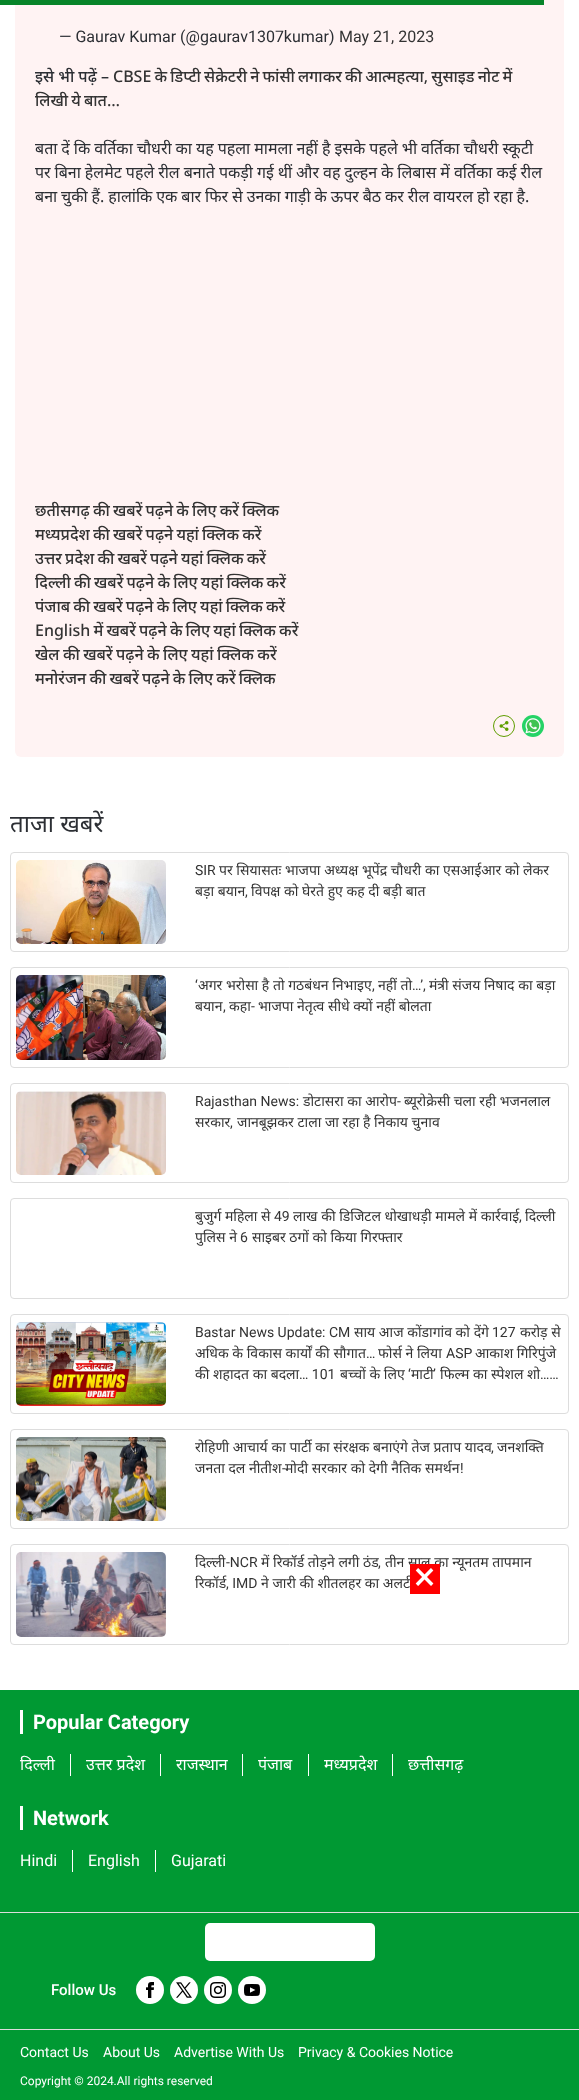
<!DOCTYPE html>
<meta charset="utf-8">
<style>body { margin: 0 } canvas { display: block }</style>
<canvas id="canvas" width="579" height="2100"></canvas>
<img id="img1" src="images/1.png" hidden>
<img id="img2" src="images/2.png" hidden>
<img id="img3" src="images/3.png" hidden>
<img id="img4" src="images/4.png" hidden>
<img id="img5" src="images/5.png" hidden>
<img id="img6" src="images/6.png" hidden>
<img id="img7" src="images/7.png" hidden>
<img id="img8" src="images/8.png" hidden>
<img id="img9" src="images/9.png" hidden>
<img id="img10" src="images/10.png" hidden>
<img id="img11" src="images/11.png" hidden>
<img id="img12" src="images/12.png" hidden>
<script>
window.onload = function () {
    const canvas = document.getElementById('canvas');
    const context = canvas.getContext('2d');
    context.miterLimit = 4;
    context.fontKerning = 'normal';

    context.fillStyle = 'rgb(255, 255, 255)';
    context.fillRect(0, 0, 579, 2100);
    context.fillStyle = 'rgb(255, 243, 243)';
    context.beginPath();
    context.roundRect(15, -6, 549, 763, 6);
    context.fill();
    context.fillStyle = 'rgb(7, 132, 41)';
    context.fillRect(0, 0, 544, 5);
    context.drawImage(document.getElementById('img1'), 499, 721, 10, 10);
    context.beginPath();
    context.arc(504, 726, 10.5, 0, 2 * Math.PI);
    context.strokeStyle = 'rgb(95, 158, 0)';
    context.stroke();
    context.fillStyle = 'rgb(37, 211, 102)';
    context.beginPath();
    context.arc(533, 726, 11, 0, 2 * Math.PI);
    context.fill();
    context.drawImage(document.getElementById('img2'), 525, 718, 16, 16);
    context.beginPath();
    context.roundRect(10.5, 852.5, 558, 99, 3.5);
    context.strokeStyle = 'rgb(221, 221, 221)';
    context.stroke();
    context.drawImage(document.getElementById('img3'), 16, 860, 150, 84);
    context.beginPath();
    context.roundRect(10.5, 967.5, 558, 100, 3.5);
    context.stroke();
    context.drawImage(document.getElementById('img4'), 16, 975, 150, 85);
    context.beginPath();
    context.roundRect(10.5, 1083.5, 558, 99, 3.5);
    context.stroke();
    context.drawImage(document.getElementById('img5'), 16, 1091, 150, 84);
    context.beginPath();
    context.roundRect(10.5, 1198.5, 558, 100, 3.5);
    context.stroke();
    context.beginPath();
    context.roundRect(10.5, 1314.5, 558, 99, 3.5);
    context.stroke();
    context.drawImage(document.getElementById('img6'), 16, 1322, 150, 84);
    context.beginPath();
    context.roundRect(10.5, 1429.5, 558, 99, 3.5);
    context.stroke();
    context.drawImage(document.getElementById('img7'), 16, 1437, 150, 84);
    context.beginPath();
    context.roundRect(10.5, 1544.5, 558, 100, 3.5);
    context.stroke();
    context.drawImage(document.getElementById('img8'), 16, 1552, 150, 85);
    context.fillStyle = 'rgb(0, 153, 51)';
    context.fillRect(0, 1690, 579, 410);
    context.fillStyle = 'rgb(255, 255, 255)';
    context.fillRect(20, 1710, 3, 24);
    context.fillRect(70, 1754, 1, 22);
    context.fillRect(160, 1754, 1, 22);
    context.fillRect(242, 1754, 1, 22);
    context.fillRect(308, 1754, 1, 22);
    context.fillRect(392, 1754, 1, 22);
    context.fillRect(20, 1806, 3, 24);
    context.fillRect(72, 1850, 1, 22);
    context.fillRect(155, 1850, 1, 22);
    context.fillStyle = 'rgb(221, 221, 221)';
    context.fillRect(0, 1912, 579, 1);
    context.fillStyle = 'rgb(255, 255, 255)';
    context.beginPath();
    context.roundRect(205, 1923, 170, 38, 5);
    context.fill();
    context.beginPath();
    context.arc(150, 1990, 14, 0, 2 * Math.PI);
    context.fill();
    context.drawImage(document.getElementById('img9'), 146, 1982, 8, 16);
    context.beginPath();
    context.arc(184, 1990, 14, 0, 2 * Math.PI);
    context.fill();
    context.drawImage(document.getElementById('img10'), 176, 1982, 16, 16);
    context.beginPath();
    context.arc(218, 1990, 14, 0, 2 * Math.PI);
    context.fill();
    context.drawImage(document.getElementById('img11'), 210, 1982, 16, 16);
    context.beginPath();
    context.arc(252, 1990, 14, 0, 2 * Math.PI);
    context.fill();
    context.drawImage(document.getElementById('img12'), 244, 1984, 16, 12);
    context.fillStyle = 'rgb(221, 221, 221)';
    context.fillRect(0, 2029, 579, 1);
    context.font = '16px Roboto';
    context.fillStyle = 'rgb(44, 47, 52)';
    context.fillText('— Gaurav Kumar (@gaurav1307kumar)', 59, 42);
    context.fillStyle = 'rgb(51, 51, 51)';
    context.fillText('May 21, 2023', 339, 42);
    context.font = '500 16px Noto Sans';
    context.fillStyle = 'rgb(44, 47, 52)';
    context.fillText('इसे भी पढ़ें –', 35, 82);
    context.wordSpacing = '-1px';
    context.fillStyle = 'rgb(51, 51, 51)';
    context.fillText('CBSE के डिप्टी सेक्रेटरी ने फांसी लगाकर की आत्महत्या, सुसाइड नोट में', 113, 82);
    context.fillText('लिखी ये बात…', 35, 106);
    context.wordSpacing = '-0.2px';
    context.font = '16px Noto Sans';
    context.fillStyle = 'rgb(44, 47, 52)';
    context.fillText('बता दें कि वर्तिका चौधरी का यह पहला मामला नहीं है इसके पहले भी वर्तिका चौधरी स्कूटी', 35, 154);
    context.fillText('पर बिना हेलमेट पहले रील बनाते पकड़ी गई थीं और वह दुल्हन के लिबास में वर्तिका कई रील', 35, 178);
    context.wordSpacing = '-0.25px';
    context.fillText('बना चुकी हैं. हालांकि एक बार फिर से उनका गाड़ी के ऊपर बैठ कर रील वायरल हो रहा है.', 35, 202);
    context.wordSpacing = '-1px';
    context.font = '500 16px Noto Sans';
    context.fillStyle = 'rgb(51, 51, 51)';
    context.fillText('छतीसगढ़ की खबरें पढ़ने के लिए करें क्लिक', 35, 516);
    context.fillText('मध्यप्रदेश की खबरें पढ़ने यहां क्लिक करें', 35, 540);
    context.fillText('उत्तर प्रदेश की खबरें पढ़ने यहां क्लिक करें', 35, 564);
    context.fillText('दिल्ली की खबरें पढ़ने के लिए यहां क्लिक करें', 35, 588);
    context.save();
    context.beginPath();
    context.rect(35, 0, 509, 715);
    context.clip();
    context.fillText('पंजाब की खबरें पढ़ने के लिए यहां क्लिक करें', 35, 612);
    context.restore();
    context.fillText('English में खबरें पढ़ने के लिए यहां क्लिक करें', 35, 636);
    context.save();
    context.beginPath();
    context.rect(35, 0, 509, 715);
    context.clip();
    context.wordSpacing = '-0.75px';
    context.fillText('खेल की खबरें पढ़ने के लिए यहां क्लिक करें', 35, 660);
    context.restore();
    context.fillText('मनोरंजन की खबरें पढ़ने के लिए करें क्लिक', 35, 684);
    context.wordSpacing = '0px';
    context.font = '24px Noto Sans';
    context.fillStyle = 'rgb(44, 47, 52)';
    context.fillText('ताजा खबरें', 10, 832);
    context.font = '14px Roboto';
    context.fillStyle = 'rgb(51, 51, 51)';
    context.fillText('SIR', 195, 875);
    context.font = '14px Noto Sans';
    context.fillText('पर सियासतः भाजपा अध्यक्ष भूपेंद्र चौधरी का एसआईआर को लेकर', 219, 875);
    context.fillText('बड़ा बयान', 195, 896);
    context.font = '14px Roboto';
    context.fillText(',', 245, 896);
    context.font = '14px Noto Sans';
    context.fillText('विपक्ष को घेरते हुए कह दी बड़ी बात', 251, 896);
    context.font = '14px Roboto';
    context.fillText('‘', 195, 990);
    context.font = '14px Noto Sans';
    context.fillText('अगर भरोसा है तो गठबंधन निभाइए', 198, 990);
    context.font = '14px Roboto';
    context.fillText(',', 372, 990);
    context.font = '14px Noto Sans';
    context.fillText('नहीं तो', 378, 990);
    context.font = '14px Roboto';
    context.fillText('…’,', 412, 990);
    context.font = '14px Noto Sans';
    context.fillText('मंत्री संजय निषाद का बड़ा', 429, 990);
    context.fillText('बयान', 195, 1011);
    context.fillText('कहा', 229, 1011);
    context.font = '14px Roboto';
    context.fillText('-', 251, 1011);
    context.font = '14px Noto Sans';
    context.fillText('भाजपा नेतृत्व सीधे क्यों नहीं बोलता', 258, 1011);
    context.font = '14px Roboto';
    context.fillText(',', 223, 1011);
    context.fillText('Rajasthan News:', 195, 1106);
    context.font = '14px Noto Sans';
    context.fillText('डोटासरा का आरोप', 303, 1106);
    context.font = '14px Roboto';
    context.fillText('-', 397, 1106);
    context.font = '14px Noto Sans';
    context.fillText('ब्यूरोक्रेसी चला रही भजनलाल', 404, 1106);
    context.fillText('सरकार', 195, 1127);
    context.font = '14px Roboto';
    context.fillText(',', 230, 1127);
    context.font = '14px Noto Sans';
    context.fillText('जानबूझकर टाला जा रहा है निकाय चुनाव', 237, 1127);
    context.save();
    context.beginPath();
    context.rect(195, 1206, 368, 42);
    context.clip();
    context.fillText('बुजुर्ग महिला से', 195, 1221);
    context.restore();
    context.font = '14px Roboto';
    context.fillText('49', 274, 1221);
    context.font = '14px Noto Sans';
    context.fillText('लाख की डिजिटल धोखाधड़ी मामले में कार्रवाई', 293, 1221);
    context.fillText('दिल्ली', 525, 1221);
    context.font = '14px Roboto';
    context.fillText(',', 519, 1221);
    context.save();
    context.beginPath();
    context.rect(195, 1206, 368, 42);
    context.clip();
    context.font = '14px Noto Sans';
    context.fillText('पुलिस ने', 195, 1242);
    context.restore();
    context.fillText('6', 240, 1242);
    context.font = '14px Noto Sans';
    context.fillText('साइबर ठगों को किया गिरफ्तार', 252, 1242);
    context.font = '14px Roboto';
    context.fillText('Bastar News Update: CM', 195, 1337);
    context.font = '14px Noto Sans';
    context.fillText('साय आज कोंडागांव को देंगे', 354, 1337);
    context.font = '14px Roboto';
    context.fillText('127', 492, 1337);
    context.font = '14px Noto Sans';
    context.fillText('करोड़ से', 520, 1337);
    context.fillText('अधिक के विकास कार्यों की सौगात', 195, 1358);
    context.font = '14px Roboto';
    context.fillText('…', 366, 1358);
    context.font = '14px Noto Sans';
    context.fillText('फोर्स ने लिया', 378, 1358);
    context.font = '14px Roboto';
    context.fillText('ASP', 446, 1358);
    context.font = '14px Noto Sans';
    context.fillText('आकाश गिरिपुंजे', 475, 1358);
    context.save();
    context.beginPath();
    context.rect(195, 1322, 368, 63);
    context.clip();
    context.fillText('की', 195, 1379);
    context.restore();
    context.fillText('शहादत का बदला', 213, 1379);
    context.font = '14px Roboto';
    context.fillText('… 101', 299, 1379);
    context.font = '14px Noto Sans';
    context.fillText('बच्चों के लिए', 340, 1379);
    context.font = '14px Roboto';
    context.fillText('‘', 408, 1379);
    context.font = '14px Noto Sans';
    context.fillText('माटी', 411, 1379);
    context.font = '14px Roboto';
    context.fillText('’', 433, 1379);
    context.font = '14px Noto Sans';
    context.fillText('फिल्म का स्पेशल शो', 440, 1379);
    context.font = '14px Roboto';
    context.fillText('……', 540, 1379);
    context.save();
    context.beginPath();
    context.rect(195, 1437, 368, 42);
    context.clip();
    context.font = '14px Noto Sans';
    context.fillText('रोहिणी आचार्य का पार्टी का संरक्षक बनाएंगे तेज प्रताप यादव', 195, 1452);
    context.restore();
    context.font = '14px Noto Sans';
    context.fillText('जनशक्ति', 497, 1452);
    context.font = '14px Roboto';
    context.fillText(',', 491, 1452);
    context.font = '14px Noto Sans';
    context.fillText('जनता दल नीतीश', 195, 1473);
    context.font = '14px Roboto';
    context.fillText('!', 460, 1473);
    context.fillText('-', 282, 1473);
    context.font = '14px Noto Sans';
    context.fillText('मोदी सरकार को देगी नैतिक समर्थन', 285, 1473);
    context.fillText('दिल्ली', 195, 1567);
    context.font = '14px Roboto';
    context.fillText('-NCR', 226, 1567);
    context.font = '14px Noto Sans';
    context.fillText('में रिकॉर्ड तोड़ने लगी ठंड', 261, 1567);
    context.font = '14px Roboto';
    context.fillText(',', 378, 1567);
    context.font = '14px Noto Sans';
    context.fillText('तीन साल का न्यूनतम तापमान', 385, 1567);
    context.fillText('रिकॉर्ड', 195, 1588);
    context.font = '14px Roboto';
    context.fillText(', IMD', 226, 1588);
    context.font = '14px Noto Sans';
    context.fillText('ने जारी की शीतलहर का अलर्ट', 261, 1588);
    context.fillStyle = 'rgb(255, 0, 0)';
    context.fillRect(410, 1564, 30, 30);
    context.font = '40px Roboto';
    context.fillStyle = 'rgb(255, 255, 255)';
    context.fillText('×', 414, 1590);
    context.font = 'bold 20px Roboto';
    context.fillText('Popular Category', 33, 1729);
    context.font = '16px Noto Sans';
    context.fillText('दिल्ली', 20, 1770);
    context.fillText('उत्तर प्रदेश', 86, 1770);
    context.fillText('राजस्थान', 176, 1770);
    context.fillText('पंजाब', 258, 1770);
    context.fillText('मध्यप्रदेश', 324, 1770);
    context.fillText('छत्तीसगढ़', 408, 1770);
    context.font = 'bold 20px Roboto';
    context.fillText('Network', 33, 1825);
    context.font = '16px Roboto';
    context.fillText('Hindi', 20, 1866);
    context.fillText('English', 88, 1866);
    context.fillText('Gujarati', 171, 1866);
    context.font = '500 15px Roboto';
    context.fillText('Follow Us', 51, 1995);
    context.font = '14px Roboto';
    context.fillText('Contact Us', 20, 2057);
    context.fillText('About Us', 103, 2057);
    context.fillText('Advertise With Us', 174, 2057);
    context.fillText('Privacy & Cookies Notice', 298, 2057);
    context.font = '12px Roboto';
    context.fillText('Copyright © 2024.All rights reserved', 20, 2085);
};
</script>
